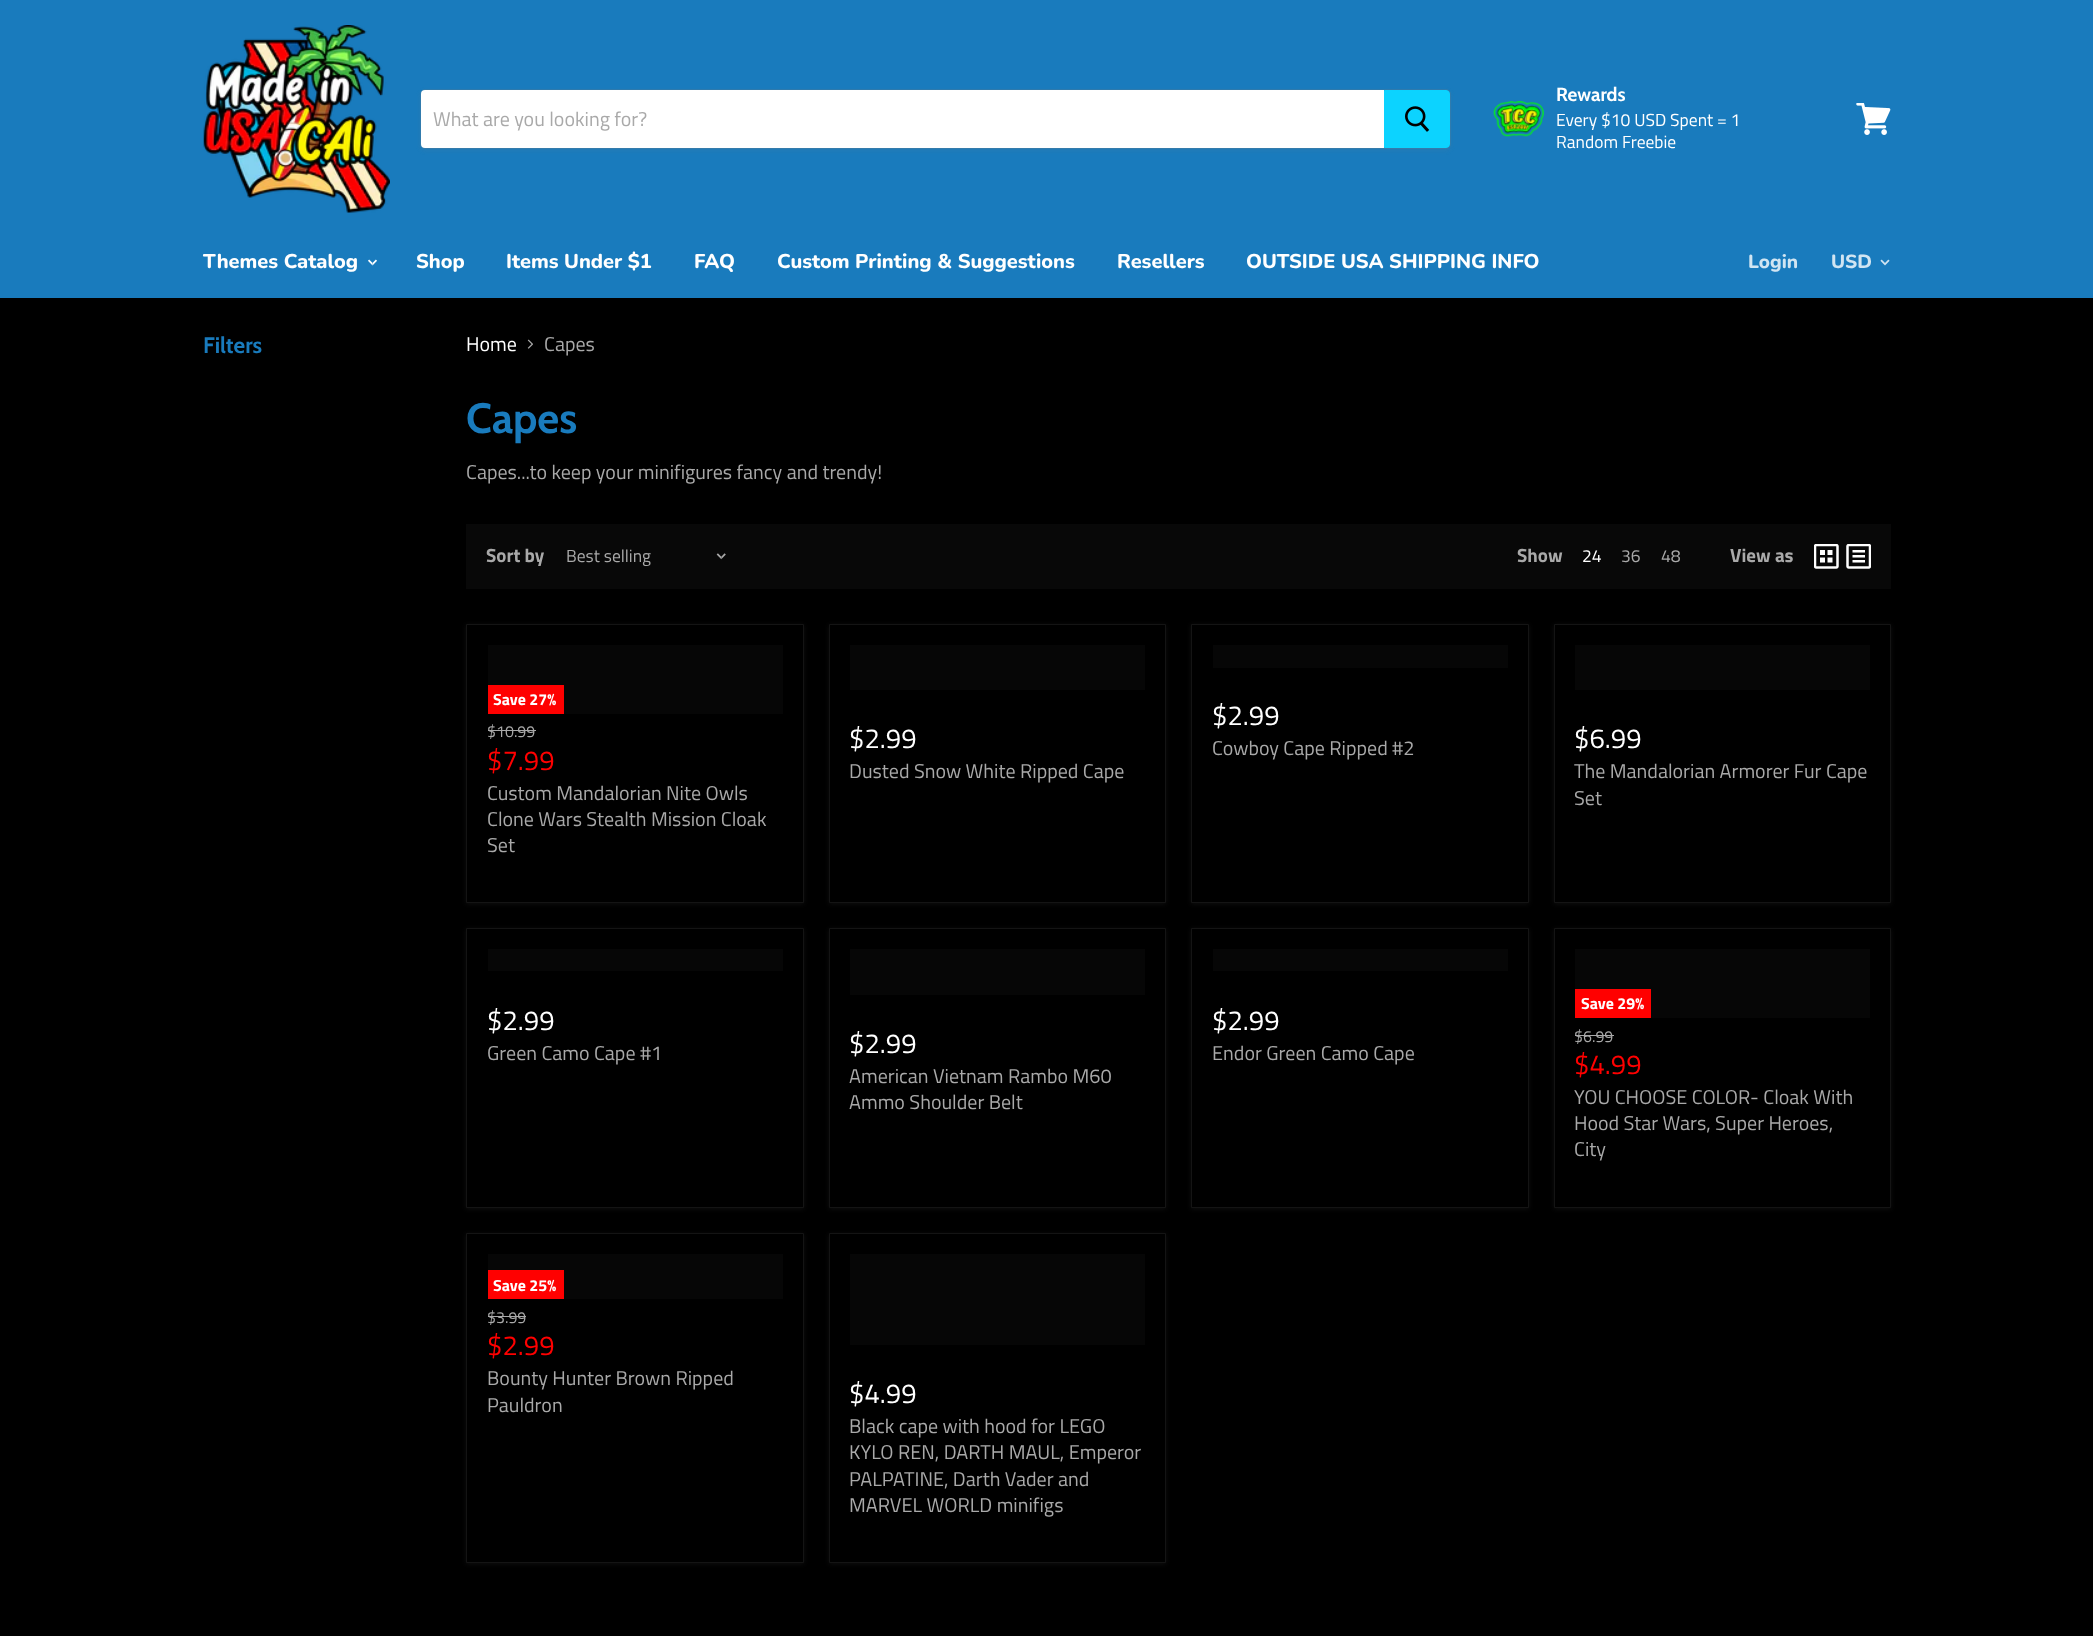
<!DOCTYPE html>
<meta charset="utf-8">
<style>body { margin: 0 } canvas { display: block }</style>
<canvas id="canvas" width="2093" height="1636"></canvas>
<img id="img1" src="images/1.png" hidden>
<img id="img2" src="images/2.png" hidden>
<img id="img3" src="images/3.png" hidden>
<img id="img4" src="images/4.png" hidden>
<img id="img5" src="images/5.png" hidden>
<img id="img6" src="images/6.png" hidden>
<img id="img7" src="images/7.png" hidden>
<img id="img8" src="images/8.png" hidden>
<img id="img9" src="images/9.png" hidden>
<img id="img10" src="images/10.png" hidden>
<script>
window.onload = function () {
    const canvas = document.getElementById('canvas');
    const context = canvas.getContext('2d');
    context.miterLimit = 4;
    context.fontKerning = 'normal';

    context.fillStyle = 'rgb(0, 0, 0)';
    context.fillRect(0, 0, 2093, 1636);
    context.fillStyle = 'rgb(25, 123, 189)';
    context.fillRect(0, 0, 2093, 298);
    context.drawImage(document.getElementById('img1'), 203, 25, 187, 188);
    context.fillStyle = 'rgba(127, 127, 127, 0.11)';
    context.filter = 'blur(2px)';
    context.beginPath();
    context.roundRect(420, 91, 1031, 60, 5);
    context.fill();
    context.filter = 'none';
    context.beginPath();
    context.roundRect(420.5, 89.5, 1030, 59, 4.5);
    context.strokeStyle = 'rgba(127, 127, 127, 0.2)';
    context.stroke();
    context.fillStyle = 'rgb(255, 255, 255)';
    context.beginPath();
    context.roundRect(421, 90, 963, 58, [4, 0, 0, 4]);
    context.fill();
    context.fillStyle = 'rgb(12, 211, 255)';
    context.beginPath();
    context.roundRect(1384.5, 90.5, 65, 57, [0, 3.5, 3.5, 0]);
    context.fill();
    context.strokeStyle = 'rgb(12, 211, 255)';
    context.stroke();
    context.drawImage(document.getElementById('img2'), 1405, 106, 25, 26);
    context.drawImage(document.getElementById('img3'), 1493, 101, 51, 36);
    context.drawImage(document.getElementById('img4'), 1856, 103, 35, 32);
    context.drawImage(document.getElementById('img5'), 368, 259, 9, 7);
    context.drawImage(document.getElementById('img6'), 1880, 259, 10, 7);
    context.drawImage(document.getElementById('img7'), 527, 339, 6, 10);
    context.fillStyle = 'rgb(8, 8, 8)';
    context.fillRect(466, 524, 1425, 65);
    context.drawImage(document.getElementById('img8'), 716, 553, 10, 7);
    context.drawImage(document.getElementById('img9'), 1814, 544, 25, 25);
    context.drawImage(document.getElementById('img10'), 1846, 544, 25, 25);
    context.fillStyle = 'rgba(127, 127, 127, 0.11)';
    context.filter = 'blur(2.5px)';
    context.beginPath();
    context.rect(466, 625, 338, 279);
    context.fill();
    context.filter = 'none';
    context.fillStyle = 'rgb(0, 0, 0)';
    context.beginPath();
    context.rect(466.5, 624.5, 337, 278);
    context.fill();
    context.strokeStyle = 'rgb(20, 20, 20)';
    context.stroke();
    context.fillStyle = 'rgb(6, 6, 6)';
    context.fillRect(488, 645, 295, 69);
    context.fillStyle = 'rgb(255, 0, 0)';
    context.fillRect(488, 685, 76, 29);
    context.fillStyle = 'rgb(169, 169, 169)';
    context.fillRect(488, 730, 48, 1);
    context.fillStyle = 'rgba(127, 127, 127, 0.11)';
    context.filter = 'blur(2.5px)';
    context.beginPath();
    context.rect(829, 625, 337, 279);
    context.fill();
    context.filter = 'none';
    context.fillStyle = 'rgb(0, 0, 0)';
    context.beginPath();
    context.rect(829.5, 624.5, 336, 278);
    context.fill();
    context.stroke();
    context.fillStyle = 'rgb(6, 6, 6)';
    context.fillRect(850, 645, 295, 45);
    context.fillStyle = 'rgba(127, 127, 127, 0.11)';
    context.filter = 'blur(2.5px)';
    context.beginPath();
    context.rect(1191, 625, 338, 279);
    context.fill();
    context.filter = 'none';
    context.fillStyle = 'rgb(0, 0, 0)';
    context.beginPath();
    context.rect(1191.5, 624.5, 337, 278);
    context.fill();
    context.stroke();
    context.fillStyle = 'rgb(6, 6, 6)';
    context.fillRect(1213, 645, 295, 23);
    context.fillStyle = 'rgba(127, 127, 127, 0.11)';
    context.filter = 'blur(2.5px)';
    context.beginPath();
    context.rect(1554, 625, 337, 279);
    context.fill();
    context.filter = 'none';
    context.fillStyle = 'rgb(0, 0, 0)';
    context.beginPath();
    context.rect(1554.5, 624.5, 336, 278);
    context.fill();
    context.stroke();
    context.fillStyle = 'rgb(6, 6, 6)';
    context.fillRect(1575, 645, 295, 45);
    context.fillStyle = 'rgba(127, 127, 127, 0.11)';
    context.filter = 'blur(2.5px)';
    context.beginPath();
    context.rect(466, 929, 338, 280);
    context.fill();
    context.filter = 'none';
    context.fillStyle = 'rgb(0, 0, 0)';
    context.beginPath();
    context.rect(466.5, 928.5, 337, 279);
    context.fill();
    context.stroke();
    context.fillStyle = 'rgb(6, 6, 6)';
    context.fillRect(488, 949, 295, 22);
    context.fillStyle = 'rgba(127, 127, 127, 0.11)';
    context.filter = 'blur(2.5px)';
    context.beginPath();
    context.rect(829, 929, 337, 280);
    context.fill();
    context.filter = 'none';
    context.fillStyle = 'rgb(0, 0, 0)';
    context.beginPath();
    context.rect(829.5, 928.5, 336, 279);
    context.fill();
    context.stroke();
    context.fillStyle = 'rgb(6, 6, 6)';
    context.fillRect(850, 949, 295, 46);
    context.fillStyle = 'rgba(127, 127, 127, 0.11)';
    context.filter = 'blur(2.5px)';
    context.beginPath();
    context.rect(1191, 929, 338, 280);
    context.fill();
    context.filter = 'none';
    context.fillStyle = 'rgb(0, 0, 0)';
    context.beginPath();
    context.rect(1191.5, 928.5, 337, 279);
    context.fill();
    context.stroke();
    context.fillStyle = 'rgb(6, 6, 6)';
    context.fillRect(1213, 949, 295, 22);
    context.fillStyle = 'rgba(127, 127, 127, 0.11)';
    context.filter = 'blur(2.5px)';
    context.beginPath();
    context.rect(1554, 929, 337, 280);
    context.fill();
    context.filter = 'none';
    context.fillStyle = 'rgb(0, 0, 0)';
    context.beginPath();
    context.rect(1554.5, 928.5, 336, 279);
    context.fill();
    context.stroke();
    context.fillStyle = 'rgb(6, 6, 6)';
    context.fillRect(1575, 949, 295, 69);
    context.fillStyle = 'rgb(255, 0, 0)';
    context.fillRect(1575, 989, 76, 29);
    context.fillStyle = 'rgb(169, 169, 169)';
    context.fillRect(1575, 1035, 39, 1);
    context.fillStyle = 'rgba(127, 127, 127, 0.11)';
    context.filter = 'blur(2.5px)';
    context.beginPath();
    context.rect(466, 1234, 338, 330);
    context.fill();
    context.filter = 'none';
    context.fillStyle = 'rgb(0, 0, 0)';
    context.beginPath();
    context.rect(466.5, 1233.5, 337, 329);
    context.fill();
    context.stroke();
    context.fillStyle = 'rgb(6, 6, 6)';
    context.fillRect(488, 1254, 295, 45);
    context.fillStyle = 'rgb(255, 0, 0)';
    context.fillRect(488, 1270, 76, 29);
    context.fillStyle = 'rgb(169, 169, 169)';
    context.fillRect(488, 1316, 38, 1);
    context.fillStyle = 'rgba(127, 127, 127, 0.11)';
    context.filter = 'blur(2.5px)';
    context.beginPath();
    context.rect(829, 1234, 337, 330);
    context.fill();
    context.filter = 'none';
    context.fillStyle = 'rgb(0, 0, 0)';
    context.beginPath();
    context.rect(829.5, 1233.5, 336, 329);
    context.fill();
    context.stroke();
    context.fillStyle = 'rgb(6, 6, 6)';
    context.fillRect(850, 1254, 295, 91);
    context.font = '20px Titillium Web';
    context.fillStyle = 'rgb(169, 169, 169)';
    context.fillText('What are you looking for?', 433, 126);
    context.font = 'bold 19px Cabin';
    context.fillStyle = 'rgb(255, 255, 255)';
    context.fillText('Rewards', 1556, 101);
    context.font = '17.5px Titillium Web';
    context.fillText('Every $10 USD Spent = 1', 1556, 126);
    context.fillText('Random Freebie', 1556, 148);
    context.font = '800 20px Nunito';
    context.fillText('Themes Catalog', 203, 268);
    context.fillText('Shop', 416, 268);
    context.fillText('Items Under $1', 506, 268);
    context.fillText('FAQ', 694, 268);
    context.fillText('Custom Printing & Suggestions', 777, 268);
    context.fillText('Resellers', 1117, 268);
    context.fillText('OUTSIDE USA SHIPPING INFO', 1246, 268);
    context.font = '800 19px Nunito';
    context.fillStyle = 'rgb(209, 229, 242)';
    context.fillText('Login', 1748, 268);
    context.fillText('USD', 1831, 268);
    context.font = 'bold 22.5px Cabin';
    context.fillStyle = 'rgb(25, 123, 189)';
    context.fillText('Filters', 203, 353);
    context.font = '20px Titillium Web';
    context.fillStyle = 'rgb(255, 255, 255)';
    context.fillText('Home', 466, 351);
    context.fillStyle = 'rgb(169, 169, 169)';
    context.fillText('Capes', 544, 351);
    context.font = 'bold 42.5px Cabin';
    context.fillStyle = 'rgb(25, 123, 189)';
    context.fillText('Capes', 466, 433);
    context.font = '20px Titillium Web';
    context.fillStyle = 'rgb(169, 169, 169)';
    context.fillText('Capes...to keep your minifigures fancy and trendy!', 466, 479);
    context.font = 'bold 19px Titillium Web';
    context.fillText('Sort by', 486, 562);
    context.font = '17.5px Titillium Web';
    context.fillText('Best selling', 566, 562);
    context.font = 'bold 19px Titillium Web';
    context.fillText('Show', 1517, 562);
    context.font = '17.5px Titillium Web';
    context.fillStyle = 'rgb(255, 255, 255)';
    context.fillText('24', 1582, 562);
    context.fillStyle = 'rgb(169, 169, 169)';
    context.fillText('36', 1621, 562);
    context.fillText('48', 1661, 562);
    context.font = 'bold 19px Titillium Web';
    context.fillText('View as', 1730, 562);
    context.font = 'bold 16px Titillium Web';
    context.fillStyle = 'rgb(255, 255, 255)';
    context.fillText('Save 27%', 493, 705);
    context.font = '16px Titillium Web';
    context.fillStyle = 'rgb(169, 169, 169)';
    context.fillText('$10.99', 487, 737);
    context.font = '27.5px Titillium Web';
    context.fillStyle = 'rgb(255, 0, 0)';
    context.fillText('$7.99', 487, 770);
    context.font = '20px Titillium Web';
    context.fillStyle = 'rgb(169, 169, 169)';
    context.fillText('Custom Mandalorian Nite Owls', 487, 800);
    context.fillText('Clone Wars Stealth Mission Cloak', 487, 826);
    context.fillText('Set', 487, 852);
    context.font = '27.5px Titillium Web';
    context.fillStyle = 'rgb(255, 255, 255)';
    context.fillText('$2.99', 849, 748);
    context.font = '20px Titillium Web';
    context.fillStyle = 'rgb(169, 169, 169)';
    context.fillText('Dusted Snow White Ripped Cape', 849, 778);
    context.font = '27.5px Titillium Web';
    context.fillStyle = 'rgb(255, 255, 255)';
    context.fillText('$2.99', 1212, 725);
    context.font = '20px Titillium Web';
    context.fillStyle = 'rgb(169, 169, 169)';
    context.fillText('Cowboy Cape Ripped #2', 1212, 755);
    context.font = '27.5px Titillium Web';
    context.fillStyle = 'rgb(255, 255, 255)';
    context.fillText('$6.99', 1574, 748);
    context.font = '20px Titillium Web';
    context.fillStyle = 'rgb(169, 169, 169)';
    context.fillText('The Mandalorian Armorer Fur Cape', 1574, 778);
    context.fillText('Set', 1574, 805);
    context.font = '27.5px Titillium Web';
    context.fillStyle = 'rgb(255, 255, 255)';
    context.fillText('$2.99', 487, 1030);
    context.font = '20px Titillium Web';
    context.fillStyle = 'rgb(169, 169, 169)';
    context.fillText('Green Camo Cape #1', 487, 1060);
    context.font = '27.5px Titillium Web';
    context.fillStyle = 'rgb(255, 255, 255)';
    context.fillText('$2.99', 849, 1053);
    context.font = '20px Titillium Web';
    context.fillStyle = 'rgb(169, 169, 169)';
    context.fillText('American Vietnam Rambo M60', 849, 1083);
    context.fillText('Ammo Shoulder Belt', 849, 1109);
    context.font = '27.5px Titillium Web';
    context.fillStyle = 'rgb(255, 255, 255)';
    context.fillText('$2.99', 1212, 1030);
    context.font = '20px Titillium Web';
    context.fillStyle = 'rgb(169, 169, 169)';
    context.fillText('Endor Green Camo Cape', 1212, 1060);
    context.font = 'bold 16px Titillium Web';
    context.fillStyle = 'rgb(255, 255, 255)';
    context.fillText('Save 29%', 1581, 1009);
    context.font = '16px Titillium Web';
    context.fillStyle = 'rgb(169, 169, 169)';
    context.fillText('$6.99', 1574, 1042);
    context.font = '27.5px Titillium Web';
    context.fillStyle = 'rgb(255, 0, 0)';
    context.fillText('$4.99', 1574, 1074);
    context.font = '20px Titillium Web';
    context.fillStyle = 'rgb(169, 169, 169)';
    context.fillText('YOU CHOOSE COLOR- Cloak With', 1574, 1104);
    context.fillText('Hood Star Wars, Super Heroes,', 1574, 1130);
    context.fillText('City', 1574, 1156);
    context.font = 'bold 16px Titillium Web';
    context.fillStyle = 'rgb(255, 255, 255)';
    context.fillText('Save 25%', 493, 1291);
    context.font = '16px Titillium Web';
    context.fillStyle = 'rgb(169, 169, 169)';
    context.fillText('$3.99', 487, 1323);
    context.font = '27.5px Titillium Web';
    context.fillStyle = 'rgb(255, 0, 0)';
    context.fillText('$2.99', 487, 1355);
    context.font = '20px Titillium Web';
    context.fillStyle = 'rgb(169, 169, 169)';
    context.fillText('Bounty Hunter Brown Ripped', 487, 1385);
    context.fillText('Pauldron', 487, 1412);
    context.font = '27.5px Titillium Web';
    context.fillStyle = 'rgb(255, 255, 255)';
    context.fillText('$4.99', 849, 1403);
    context.font = '20px Titillium Web';
    context.fillStyle = 'rgb(169, 169, 169)';
    context.fillText('Black cape with hood for LEGO', 849, 1433);
    context.fillText('KYLO REN, DARTH MAUL, Emperor', 849, 1459);
    context.fillText('PALPATINE, Darth Vader and', 849, 1486);
    context.fillText('MARVEL WORLD minifigs', 849, 1512);
};
</script>
